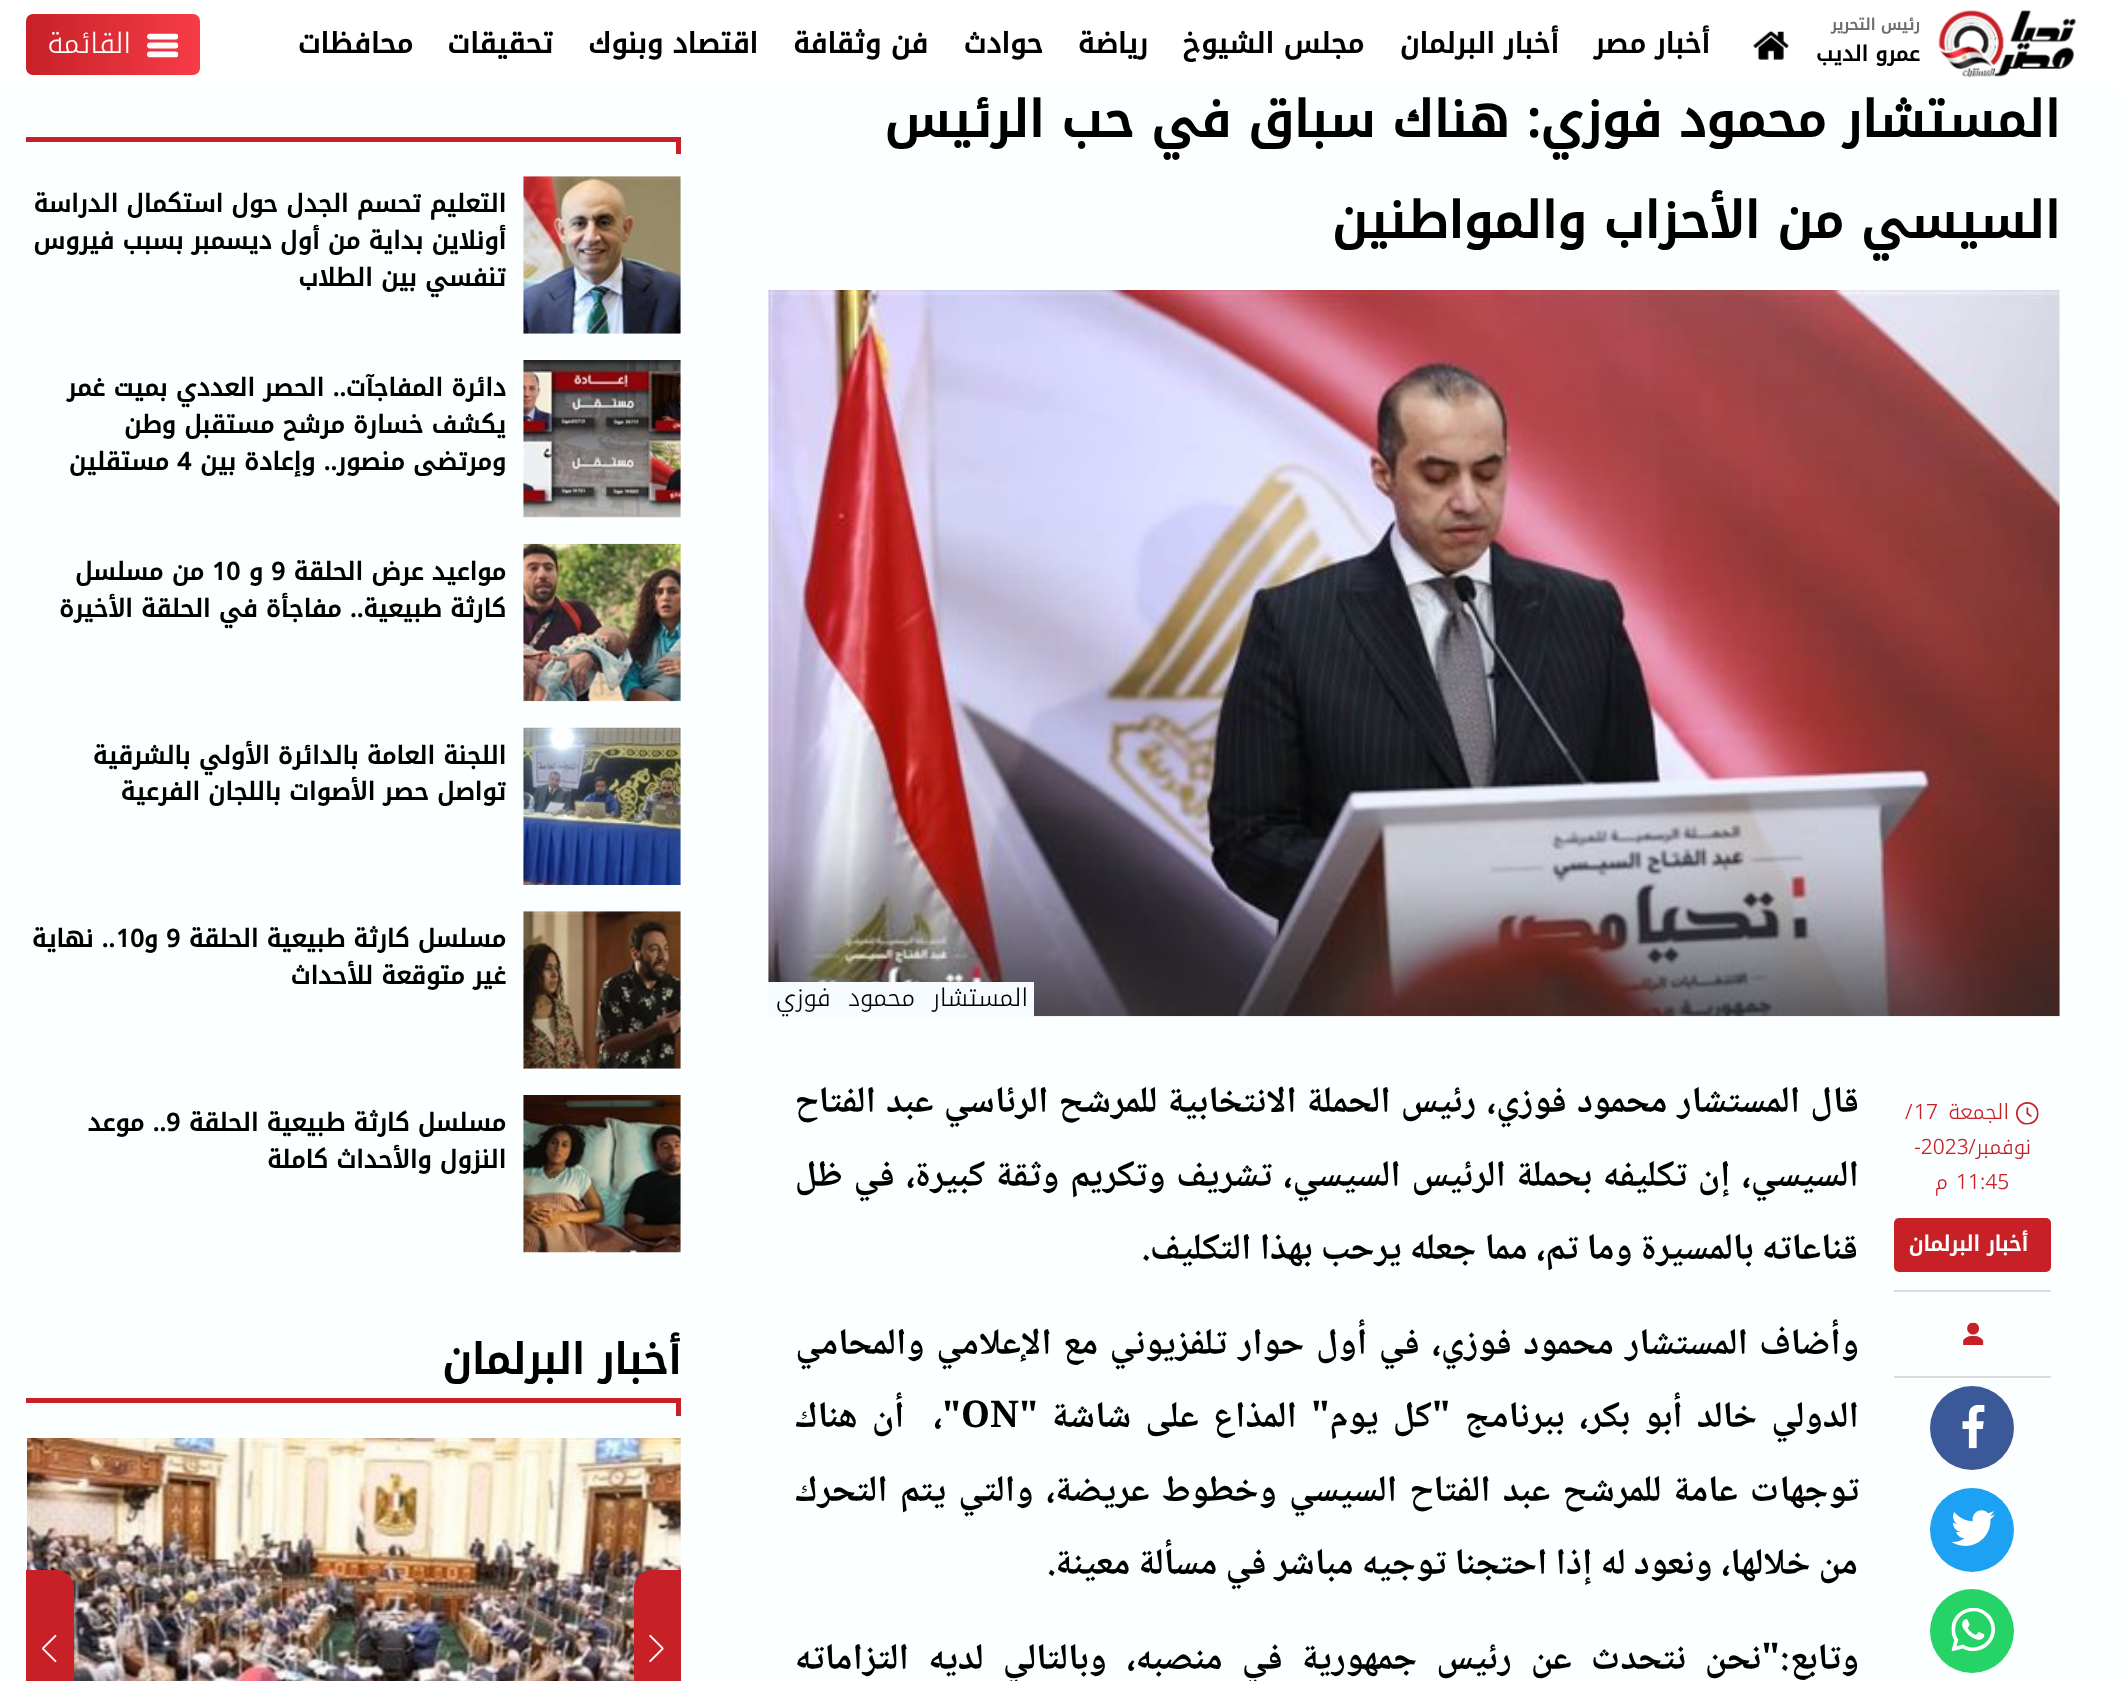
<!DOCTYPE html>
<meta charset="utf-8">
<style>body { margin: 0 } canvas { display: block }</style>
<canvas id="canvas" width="2121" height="1681"></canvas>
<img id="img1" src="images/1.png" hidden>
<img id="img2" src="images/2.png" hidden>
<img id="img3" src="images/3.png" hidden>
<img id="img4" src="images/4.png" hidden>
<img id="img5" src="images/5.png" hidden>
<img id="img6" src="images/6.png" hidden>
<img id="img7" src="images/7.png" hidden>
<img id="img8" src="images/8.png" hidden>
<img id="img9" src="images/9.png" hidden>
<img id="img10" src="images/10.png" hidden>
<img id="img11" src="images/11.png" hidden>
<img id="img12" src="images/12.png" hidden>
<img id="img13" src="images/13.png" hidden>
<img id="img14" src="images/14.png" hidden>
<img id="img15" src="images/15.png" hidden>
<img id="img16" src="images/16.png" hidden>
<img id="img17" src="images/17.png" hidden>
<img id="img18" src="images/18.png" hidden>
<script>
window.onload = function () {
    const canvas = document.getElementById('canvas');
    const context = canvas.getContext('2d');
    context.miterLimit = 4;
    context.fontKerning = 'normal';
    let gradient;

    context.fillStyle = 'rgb(252, 255, 255)';
    context.fillRect(0, 0, 2121, 1681);
    context.fillStyle = 'rgb(255, 255, 255)';
    context.fillRect(0, 0, 2121, 88);
    context.drawImage(document.getElementById('img1'), 1938, 10, 138, 68);
    context.drawImage(document.getElementById('img2'), 1753, 30, 36, 30);
    gradient = context.createLinearGradient(200, 45, 26, 45);
    gradient.addColorStop(0, 'rgb(247, 60, 71)');
    gradient.addColorStop(1, 'rgb(199, 33, 39)');
    context.fillStyle = gradient;
    context.beginPath();
    context.roundRect(26, 14, 174, 61, 7);
    context.fill();
    context.drawImage(document.getElementById('img3'), 147, 33, 32, 25);
    context.fillStyle = 'rgb(255, 255, 255)';
    context.fillRect(768, 291, 1292, 726);
    context.drawImage(document.getElementById('img4'), 768, 290, 1292, 727);
    context.fillStyle = 'rgb(245, 251, 255)';
    context.fillRect(768, 982, 266, 35);
    context.drawImage(document.getElementById('img5'), 2016, 1102, 23, 23);
    context.fillStyle = 'rgb(199, 33, 39)';
    context.beginPath();
    context.roundRect(1894, 1218, 157, 54, 5);
    context.fill();
    context.fillStyle = 'rgb(227, 214, 228)';
    context.fillRect(1894, 1290, 157, 2);
    context.drawImage(document.getElementById('img6'), 1963, 1322, 21, 23);
    context.fillStyle = 'rgb(220, 220, 220)';
    context.fillRect(1894, 1376, 157, 2);
    context.fillStyle = 'rgb(59, 89, 152)';
    context.beginPath();
    context.arc(1972, 1428, 42, 0, 2 * Math.PI);
    context.fill();
    context.drawImage(document.getElementById('img7'), 1962, 1405, 23, 44);
    context.fillStyle = 'rgb(29, 161, 242)';
    context.beginPath();
    context.arc(1972, 1530, 42, 0, 2 * Math.PI);
    context.fill();
    context.drawImage(document.getElementById('img8'), 1951, 1510, 44, 36);
    context.fillStyle = 'rgb(37, 211, 102)';
    context.beginPath();
    context.arc(1972, 1631, 42, 0, 2 * Math.PI);
    context.fill();
    context.drawImage(document.getElementById('img9'), 1951, 1608, 44, 44);
    context.fillStyle = 'rgb(199, 33, 39)';
    context.fillRect(26, 137, 655, 5);
    context.fillRect(676, 137, 5, 17);
    context.drawImage(document.getElementById('img10'), 523, 176, 158, 158);
    context.drawImage(document.getElementById('img11'), 523, 360, 158, 158);
    context.drawImage(document.getElementById('img12'), 523, 543, 158, 159);
    context.drawImage(document.getElementById('img13'), 523, 727, 158, 158);
    context.drawImage(document.getElementById('img14'), 523, 911, 158, 158);
    context.drawImage(document.getElementById('img15'), 523, 1095, 158, 158);
    context.fillRect(26, 1398, 655, 5);
    context.fillRect(676, 1398, 5, 18);
    context.drawImage(document.getElementById('img16'), 27, 1438, 654, 243);
    context.beginPath();
    context.moveTo(652, 1570);
    context.lineTo(681, 1570);
    context.lineTo(681, 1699);
    context.lineTo(652, 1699);
    context.bezierCurveTo(642, 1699, 634, 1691, 634, 1681);
    context.lineTo(634, 1588);
    context.bezierCurveTo(634, 1578, 642, 1570, 652, 1570);
    context.closePath();
    context.fill();
    context.drawImage(document.getElementById('img17'), 649, 1634, 15, 29);
    context.beginPath();
    context.moveTo(26, 1570);
    context.lineTo(56, 1570);
    context.bezierCurveTo(66, 1570, 74, 1578, 74, 1588);
    context.lineTo(74, 1681);
    context.bezierCurveTo(74, 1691, 66, 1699, 56, 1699);
    context.lineTo(26, 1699);
    context.closePath();
    context.fill();
    context.drawImage(document.getElementById('img18'), 42, 1634, 15, 29);
    context.direction = 'rtl';
    context.font = 'bold 15.75px Noto Kufi Arabic';
    context.fillStyle = 'rgb(112, 112, 112)';
    context.fillText('رئيس التحرير', 1920, 30);
    context.font = 'bold 21px Noto Kufi Arabic';
    context.fillStyle = 'rgb(0, 0, 0)';
    context.fillText('عمرو الديب', 1920, 61);
    context.font = 'bold 28px Noto Kufi Arabic';
    context.fillText('أخبار مصر', 1710, 53);
    context.fillText('أخبار البرلمان', 1559, 53);
    context.fillText('مجلس الشيوخ', 1364, 53);
    context.fillText('رياضة', 1148, 53);
    context.fillText('حوادث', 1043, 53);
    context.fillText('فن وثقافة', 928, 53);
    context.fillText('اقتصاد وبنوك', 758, 53);
    context.fillText('تحقيقات', 553, 53);
    context.fillText('محافظات', 413, 53);
    context.font = '300 28px Noto Kufi Arabic';
    context.fillStyle = 'rgb(255, 255, 255)';
    context.fillText('القائمة', 131, 53);
    context.font = 'bold 50.4px Noto Kufi Arabic';
    context.fillStyle = 'rgb(0, 0, 0)';
    context.fillText('المستشار محمود فوزي: هناك سباق في حب الرئيس', 2060, 137);
    context.fillText('السيسي من الأحزاب والمواطنين', 2060, 238);
    context.wordSpacing = '9px';
    context.font = '300 24.5px Noto Kufi Arabic';
    context.fillText('المستشار محمود فوزي', 1028, 1006);
    context.wordSpacing = '0px';
    context.font = '300 21px Noto Kufi Arabic';
    context.fillStyle = 'rgb(199, 33, 39)';
    context.fillText('الجمعة', 2009, 1119);
    context.direction = 'ltr';
    context.fillText('17', 1914, 1119);
    context.fillText('/', 1905, 1119);
    context.direction = 'rtl';
    context.fillText('نوفمبر/', 2031, 1154);
    context.direction = 'ltr';
    context.fillText('-2023', 1914, 1154);
    context.fillText('11:45', 1956, 1189);
    context.direction = 'rtl';
    context.fillText('م', 1948, 1189);
    context.font = 'bold 21px Noto Kufi Arabic';
    context.fillStyle = 'rgb(255, 255, 255)';
    context.fillText('أخبار البرلمان', 2028, 1251);
    context.wordSpacing = '2px';
    context.font = 'bold 36.75px Noto Naskh Arabic';
    context.fillStyle = 'rgb(0, 0, 0)';
    context.fillText('قال المستشار محمود فوزي، رئيس الحملة الانتخابية للمرشح الرئاسي عبد الفتاح', 1859, 1112);
    context.wordSpacing = '2.6px';
    context.fillText('السيسي، إن تكليفه بحملة الرئيس السيسي، تشريف وتكريم وثقة كبيرة، في ظل', 1859, 1186);
    context.wordSpacing = '0px';
    context.fillText('قناعاته بالمسيرة وما تم، مما جعله يرحب بهذا التكليف.', 1858, 1259);
    context.wordSpacing = '3.4px';
    context.fillText('وأضاف المستشار محمود فوزي، في أول حوار تلفزيوني مع الإعلامي والمحامي', 1859, 1354);
    context.wordSpacing = '6px';
    context.fillText('الدولي خالد أبو بكر، ببرنامج "كل يوم" المذاع على شاشة "', 1859, 1427);
    context.wordSpacing = '0px';
    context.direction = 'ltr';
    context.fillText('ON', 961, 1427);
    context.wordSpacing = '6px';
    context.direction = 'rtl';
    context.fillText('"،  أن هناك', 961, 1427);
    context.wordSpacing = '4px';
    context.fillText('توجهات عامة للمرشح عبد الفتاح السيسي وخطوط عريضة، والتي يتم التحرك', 1859, 1501);
    context.wordSpacing = '0px';
    context.fillText('من خلالها، ونعود له إذا احتجنا توجيه مباشر في مسألة معينة.', 1858, 1574);
    context.wordSpacing = '11px';
    context.fillText('وتابع:"نحن نتحدث عن رئيس جمهورية في منصبه، وبالتالي لديه التزاماته', 1859, 1669);
    context.wordSpacing = '0px';
    context.font = 'bold 24.5px Noto Kufi Arabic';
    context.fillText('التعليم تحسم الجدل حول استكمال الدراسة', 506, 212);
    context.fillText('أونلاين بداية من أول ديسمبر بسبب فيروس', 506, 249);
    context.fillText('تنفسي بين الطلاب', 506, 286);
    context.fillText('دائرة المفاجآت.. الحصر العددي بميت غمر', 506, 396);
    context.fillText('يكشف خسارة مرشح مستقبل وطن', 506, 433);
    context.fillText('ومرتضى منصور.. وإعادة بين', 506, 470);
    context.direction = 'ltr';
    context.fillText('4', 177, 470);
    context.direction = 'rtl';
    context.fillText('مستقلين', 169, 470);
    context.fillText('مواعيد عرض الحلقة', 506, 580);
    context.direction = 'ltr';
    context.fillText('9', 271, 580);
    context.direction = 'rtl';
    context.fillText('و', 263, 580);
    context.direction = 'ltr';
    context.fillText('10', 212, 580);
    context.direction = 'rtl';
    context.fillText('من مسلسل', 204, 580);
    context.fillText('كارثة طبيعية.. مفاجأة في الحلقة الأخيرة', 506, 617);
    context.fillText('اللجنة العامة بالدائرة الأولي بالشرقية', 506, 764);
    context.fillText('تواصل حصر الأصوات باللجان الفرعية', 506, 800);
    context.fillText('مسلسل كارثة طبيعية الحلقة', 506, 947);
    context.direction = 'ltr';
    context.fillText('9', 166, 947);
    context.direction = 'rtl';
    context.fillText('و', 158, 947);
    context.direction = 'ltr';
    context.fillText('10', 116, 947);
    context.direction = 'rtl';
    context.fillText('.. نهاية', 115, 947);
    context.fillText('غير متوقعة للأحداث', 506, 984);
    context.fillText('مسلسل كارثة طبيعية الحلقة', 506, 1131);
    context.direction = 'ltr';
    context.fillText('9', 166, 1131);
    context.direction = 'rtl';
    context.fillText('.. موعد', 166, 1131);
    context.fillText('النزول والأحداث كاملة', 506, 1168);
    context.font = 'bold 42px Noto Kufi Arabic';
    context.fillText('أخبار البرلمان', 681, 1374);
};
</script>
